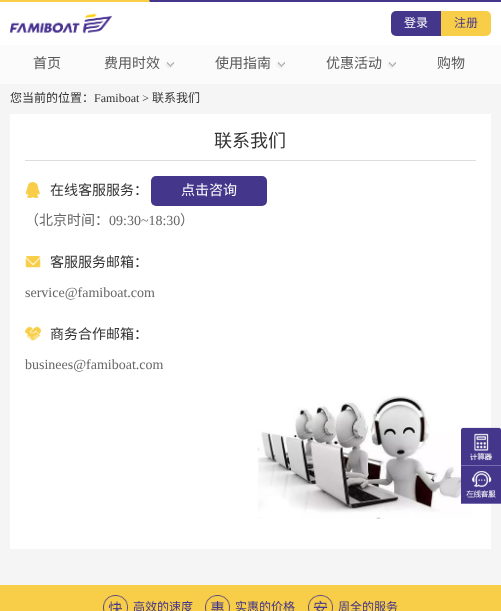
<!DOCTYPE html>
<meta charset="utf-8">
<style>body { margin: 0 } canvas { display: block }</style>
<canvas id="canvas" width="501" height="611"></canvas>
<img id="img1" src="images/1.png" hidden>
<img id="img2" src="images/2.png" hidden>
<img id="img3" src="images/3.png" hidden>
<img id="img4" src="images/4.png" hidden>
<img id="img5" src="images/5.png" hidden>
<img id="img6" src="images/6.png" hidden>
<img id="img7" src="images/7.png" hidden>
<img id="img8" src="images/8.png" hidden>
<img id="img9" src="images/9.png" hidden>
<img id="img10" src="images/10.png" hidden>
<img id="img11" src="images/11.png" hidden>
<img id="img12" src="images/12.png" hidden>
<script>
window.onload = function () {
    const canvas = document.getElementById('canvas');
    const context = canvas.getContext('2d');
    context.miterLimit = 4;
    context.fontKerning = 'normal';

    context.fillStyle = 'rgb(245, 245, 245)';
    context.fillRect(0, 0, 501, 611);
    context.fillStyle = 'rgb(255, 255, 255)';
    context.fillRect(0, 2, 501, 43);
    context.drawImage(document.getElementById('img1'), 0, 0, 501, 2);
    context.drawImage(document.getElementById('img2'), 10, 13, 102, 21);
    context.fillStyle = 'rgb(68, 54, 139)';
    context.beginPath();
    context.roundRect(391, 11, 50, 25, [5, 0, 0, 5]);
    context.fill();
    context.fillStyle = 'rgb(248, 206, 72)';
    context.beginPath();
    context.roundRect(441, 11, 50, 25, [0, 5, 5, 0]);
    context.fill();
    context.fillStyle = 'rgb(251, 251, 251)';
    context.fillRect(0, 45, 501, 39);
    context.drawImage(document.getElementById('img3'), 165, 62, 9, 7);
    context.drawImage(document.getElementById('img3'), 276, 62, 9, 7);
    context.drawImage(document.getElementById('img3'), 387, 62, 9, 7);
    context.fillStyle = 'rgb(255, 255, 255)';
    context.fillRect(10, 114, 481, 435);
    context.fillStyle = 'rgb(221, 221, 221)';
    context.fillRect(25, 160, 451, 1);
    context.drawImage(document.getElementById('img4'), 25, 182, 15, 16);
    context.fillStyle = 'rgb(68, 54, 139)';
    context.beginPath();
    context.roundRect(151, 176, 116, 30, 5);
    context.fill();
    context.drawImage(document.getElementById('img5'), 25, 256, 16, 12);
    context.drawImage(document.getElementById('img6'), 25, 326, 16, 15);
    context.drawImage(document.getElementById('img7'), 257, 396, 216, 123);
    context.drawImage(document.getElementById('img8'), 461, 427, 40, 39);
    context.drawImage(document.getElementById('img9'), 461, 466, 40, 38);
    context.fillStyle = 'rgb(248, 206, 72)';
    context.fillRect(0, 585, 501, 26);
    context.drawImage(document.getElementById('img10'), 103, 595, 25, 16);
    context.drawImage(document.getElementById('img11'), 205, 595, 25, 16);
    context.drawImage(document.getElementById('img12'), 308, 595, 25, 16);
    context.font = '12px Noto Sans CJK SC';
    context.fillStyle = 'rgb(255, 255, 255)';
    context.fillText('登录', 404, 27);
    context.fillStyle = 'rgb(68, 54, 139)';
    context.fillText('注册', 454, 27);
    context.font = '14px Noto Sans CJK SC';
    context.fillStyle = 'rgb(90, 90, 90)';
    context.fillText('首页', 33, 68);
    context.fillText('费用时效', 104, 68);
    context.fillText('使用指南', 215, 68);
    context.fillText('优惠活动', 326, 68);
    context.fillText('购物', 437, 68);
    context.font = '12px Noto Sans CJK SC';
    context.fillStyle = 'rgb(51, 51, 51)';
    context.fillText('您当前的位置：', 10, 102);
    context.font = '12px Liberation Serif';
    context.fillText('Famiboat >', 94, 102);
    context.font = '12px Noto Sans CJK SC';
    context.fillText('联系我们', 152, 102);
    context.font = '18px Noto Sans CJK SC';
    context.fillText('联系我们', 214, 147);
    context.font = '14px Noto Sans CJK SC';
    context.fillText('在线客服服务：', 50, 195);
    context.fillStyle = 'rgb(255, 255, 255)';
    context.fillText('点击咨询', 181, 195);
    context.fillStyle = 'rgb(102, 102, 102)';
    context.fillText('（北京时间：', 25, 225);
    context.font = '14px Liberation Serif';
    context.fillText('09:30~18:30', 109, 225);
    context.font = '14px Noto Sans CJK SC';
    context.fillText('）', 180, 225);
    context.fillStyle = 'rgb(51, 51, 51)';
    context.fillText('客服服务邮箱：', 50, 267);
    context.font = '14px Liberation Serif';
    context.fillStyle = 'rgb(102, 102, 102)';
    context.fillText('service@famiboat.com', 25, 297);
    context.font = '14px Noto Sans CJK SC';
    context.fillStyle = 'rgb(51, 51, 51)';
    context.fillText('商务合作邮箱：', 50, 339);
    context.font = '14px Liberation Serif';
    context.fillStyle = 'rgb(102, 102, 102)';
    context.fillText('businees@famiboat.com', 25, 369);
    context.font = '12px Noto Sans CJK SC';
    context.fillStyle = 'rgb(68, 54, 139)';
    context.fillText('高效的速度', 133, 611);
    context.fillText('实惠的价格', 235, 611);
    context.fillText('周全的服务', 338, 611);
};
</script>
